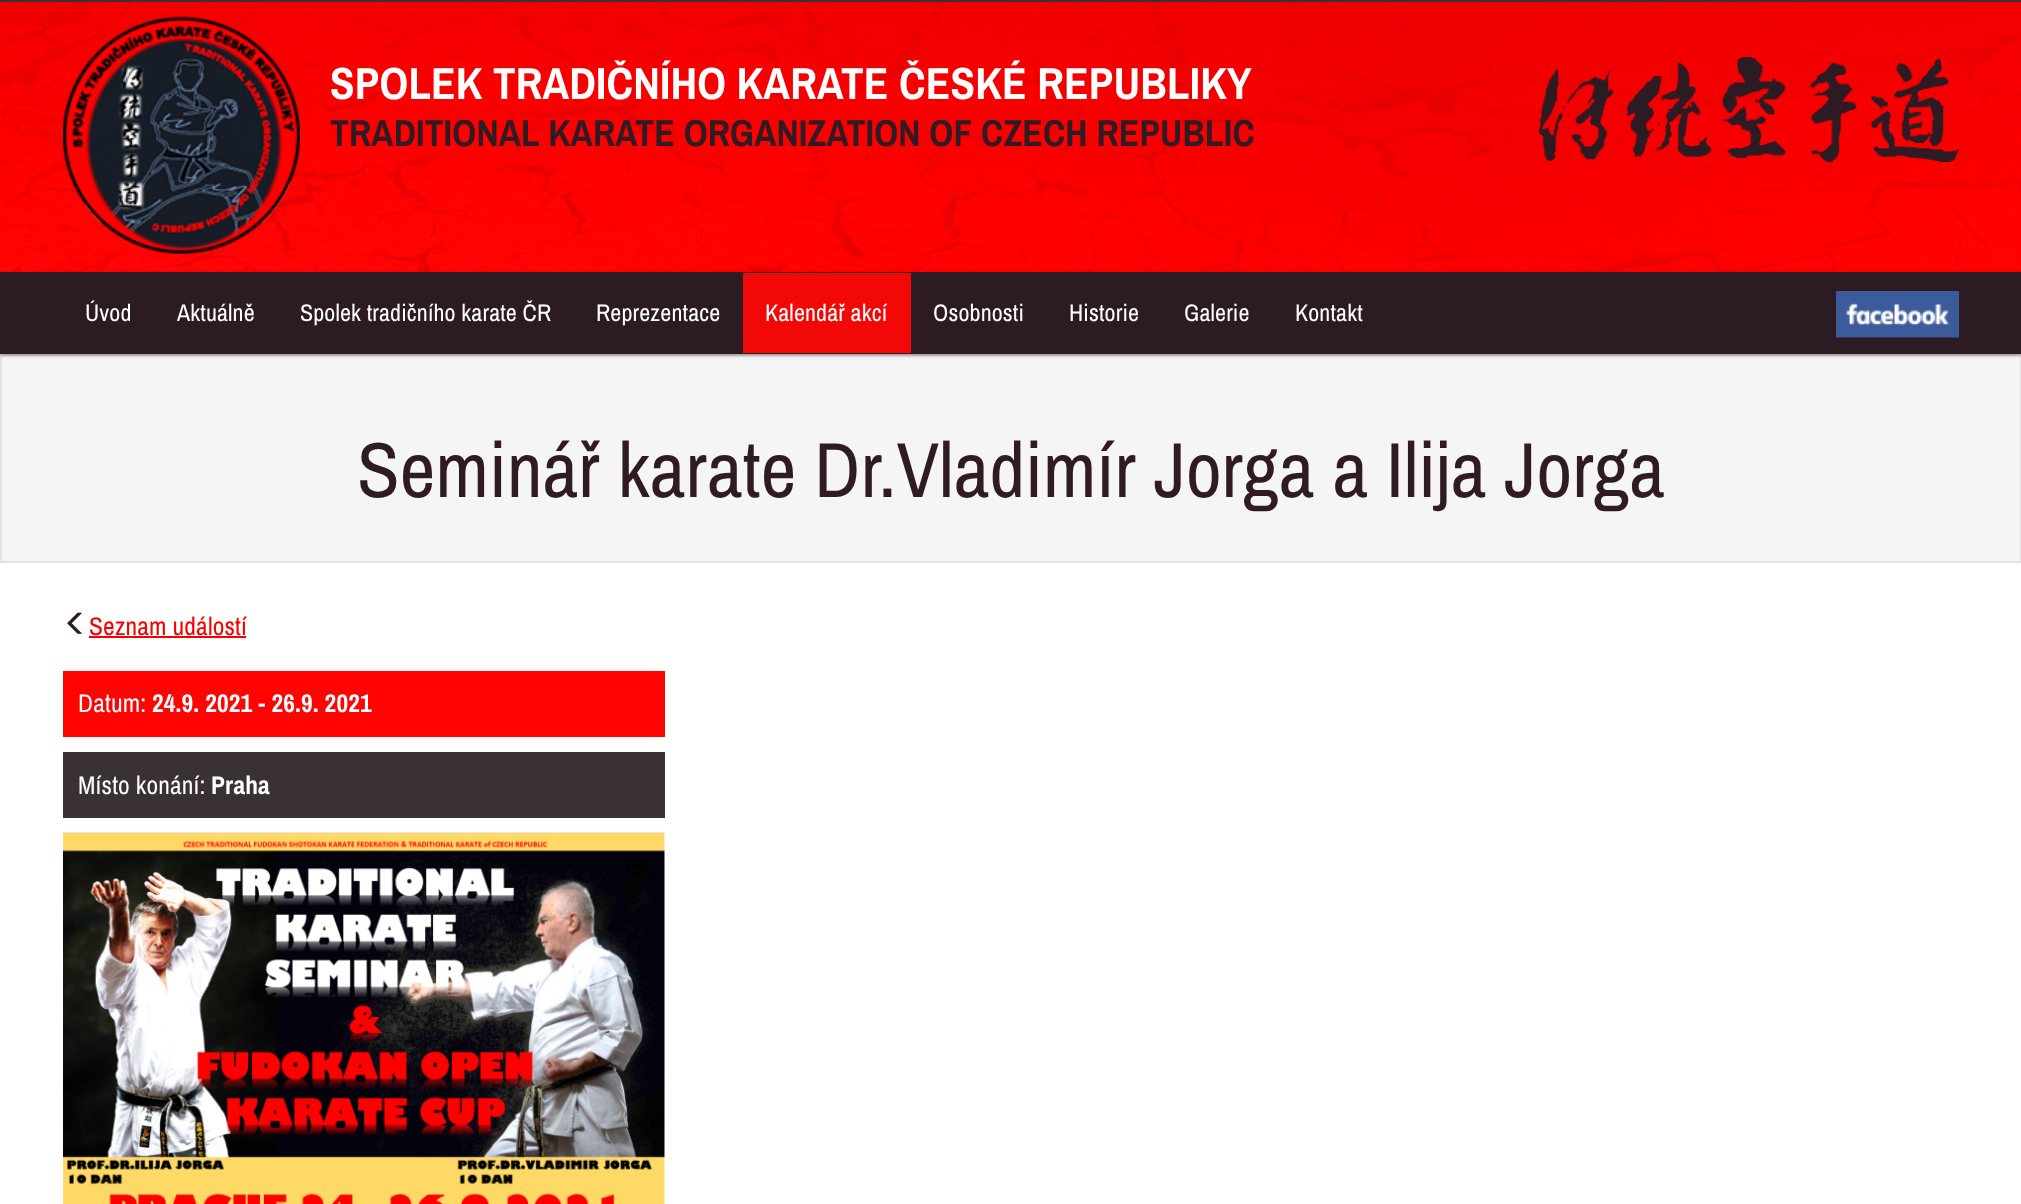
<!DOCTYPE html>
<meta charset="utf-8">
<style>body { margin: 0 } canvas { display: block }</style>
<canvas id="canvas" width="2021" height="1204"></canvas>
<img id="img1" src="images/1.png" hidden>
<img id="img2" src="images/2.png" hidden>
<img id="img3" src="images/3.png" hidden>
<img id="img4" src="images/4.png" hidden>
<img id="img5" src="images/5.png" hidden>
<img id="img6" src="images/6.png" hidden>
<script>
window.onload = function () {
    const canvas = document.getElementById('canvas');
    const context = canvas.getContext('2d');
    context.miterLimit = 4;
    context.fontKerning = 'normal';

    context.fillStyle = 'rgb(255, 255, 255)';
    context.fillRect(0, 0, 2021, 1204);
    context.drawImage(document.getElementById('img1'), 0, 2, 2021, 270);
    context.fillStyle = 'rgb(57, 49, 53)';
    context.fillRect(0, 0, 2021, 2);
    context.drawImage(document.getElementById('img2'), 63, 16, 237, 238);
    context.drawImage(document.getElementById('img3'), 1539, 57, 420, 105);
    context.fillStyle = 'rgb(245, 245, 245)';
    context.beginPath();
    context.rect(1, 355, 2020, 207);
    context.fill();
    context.strokeStyle = 'rgb(227, 227, 227)';
    context.lineWidth = 2;
    context.stroke();
    context.fillStyle = 'rgba(0, 0, 0, 0.3)';
    context.filter = 'blur(1.5px)';
    context.beginPath();
    context.rect(0, 273, 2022, 83);
    context.fill();
    context.filter = 'none';
    context.fillStyle = 'rgb(45, 27, 35)';
    context.fillRect(0, 272, 2021, 82);
    context.fillStyle = 'rgb(243, 8, 8)';
    context.fillRect(743, 273, 168, 80);
    context.drawImage(document.getElementById('img4'), 1836, 291, 123, 47);
    context.drawImage(document.getElementById('img5'), 67, 612, 15, 22);
    context.fillStyle = 'rgb(247, 0, 0)';
    context.fillRect(89, 636, 157, 2);
    context.fillStyle = 'rgb(255, 4, 3)';
    context.fillRect(63, 671, 602, 66);
    context.fillStyle = 'rgb(57, 49, 53)';
    context.fillRect(63, 752, 602, 66);
    context.drawImage(document.getElementById('img6'), 63, 832, 602, 372);
    context.letterSpacing = '0.15px';
    context.font = 'bold 45px Archivo Narrow';
    context.fillStyle = 'rgb(255, 255, 255)';
    context.fillText('SPOLEK TRADIČNÍHO KARATE ČESKÉ REPUBLIKY', 330, 99);
    context.font = 'bold 37.5px Archivo Narrow';
    context.fillStyle = 'rgb(46, 27, 35)';
    context.fillText('TRADITIONAL KARATE ORGANIZATION OF CZECH REPUBLIC', 330, 146);
    context.font = '24px Archivo Narrow';
    context.fillStyle = 'rgb(255, 255, 255)';
    context.fillText('Úvod', 85, 321);
    context.fillText('Aktuálně', 177, 321);
    context.fillText('Spolek tradičního karate ČR', 300, 321);
    context.fillText('Reprezentace', 596, 321);
    context.fillText('Kalendář akcí', 765, 321);
    context.fillText('Osobnosti', 933, 321);
    context.fillText('Historie', 1069, 321);
    context.fillText('Galerie', 1184, 321);
    context.fillText('Kontakt', 1295, 321);
    context.font = '78px Archivo Narrow';
    context.fillStyle = 'rgb(46, 27, 35)';
    context.fillText('Seminář karate Dr.Vladimír Jorga a Ilija Jorga', 357, 497);
    context.font = '25.5px Archivo Narrow';
    context.fillStyle = 'rgb(247, 0, 0)';
    context.fillText('Seznam událostí', 89, 635);
    context.fillStyle = 'rgb(255, 255, 255)';
    context.fillText('Datum:', 78, 712);
    context.font = 'bold 25.5px Archivo Narrow';
    context.fillText('24.9. 2021 - 26.9. 2021', 152, 712);
    context.font = '25.5px Archivo Narrow';
    context.fillText('Místo konání:', 78, 794);
    context.font = 'bold 25.5px Archivo Narrow';
    context.fillText('Praha', 211, 794);
};
</script>
